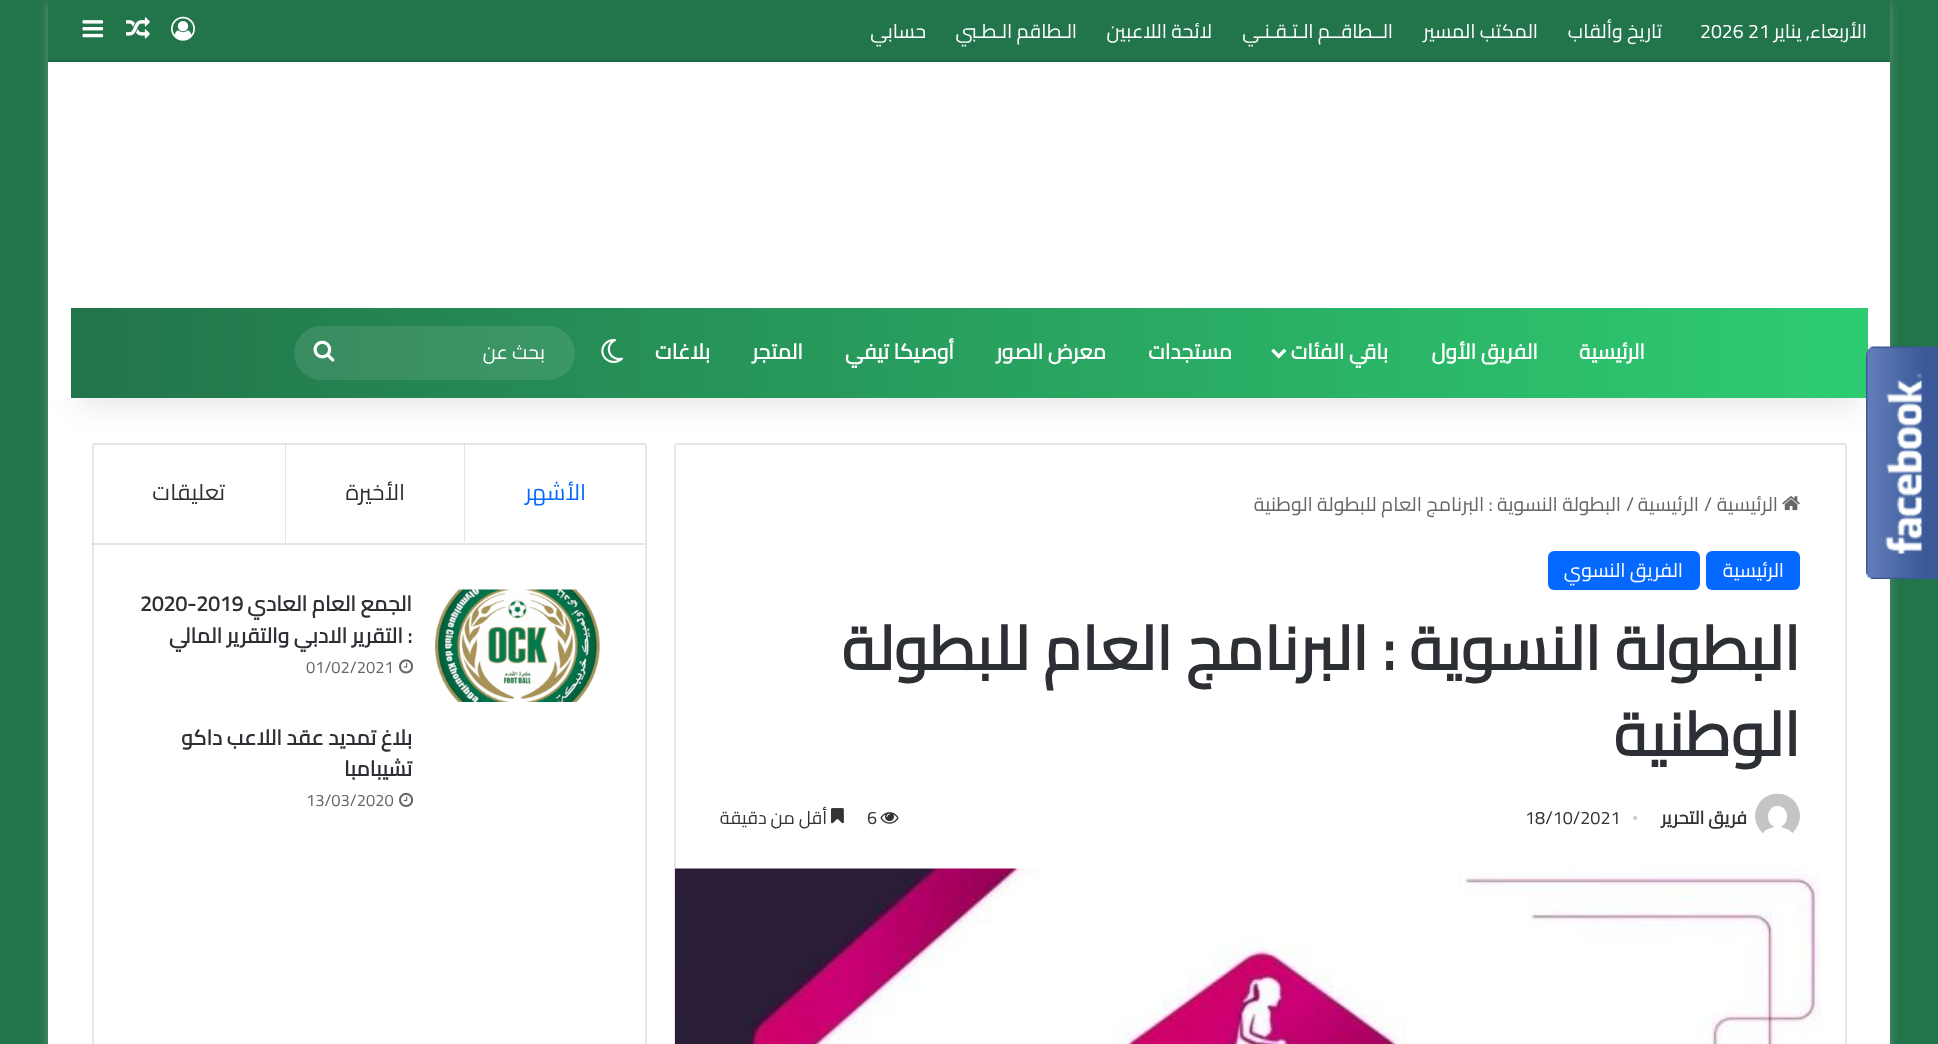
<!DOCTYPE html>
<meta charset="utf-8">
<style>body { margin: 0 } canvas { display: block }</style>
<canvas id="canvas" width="1938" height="1044"></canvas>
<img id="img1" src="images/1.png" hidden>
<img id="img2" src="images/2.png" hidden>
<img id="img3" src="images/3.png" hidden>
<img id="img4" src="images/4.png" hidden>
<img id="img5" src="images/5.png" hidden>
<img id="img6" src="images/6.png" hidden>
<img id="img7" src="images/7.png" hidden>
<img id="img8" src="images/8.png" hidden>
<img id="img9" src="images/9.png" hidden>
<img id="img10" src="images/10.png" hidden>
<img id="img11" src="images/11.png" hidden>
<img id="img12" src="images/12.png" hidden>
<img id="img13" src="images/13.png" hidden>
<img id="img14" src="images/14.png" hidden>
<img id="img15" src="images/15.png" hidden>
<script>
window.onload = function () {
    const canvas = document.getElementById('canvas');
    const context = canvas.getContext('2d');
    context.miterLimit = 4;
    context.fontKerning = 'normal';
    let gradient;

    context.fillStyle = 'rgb(34, 116, 75)';
    context.fillRect(0, 0, 1938, 1044);
    context.fillStyle = 'rgba(171, 171, 171, 0.5)';
    context.filter = 'blur(5px)';
    context.beginPath();
    context.rect(48, 2, 1842, 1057);
    context.fill();
    context.filter = 'none';
    context.fillStyle = 'rgb(255, 255, 255)';
    context.fillRect(48, 398, 1842, 646);
    context.beginPath();
    context.roundRect(675, 444, 1171, 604, 2);
    context.strokeStyle = 'rgb(230, 230, 230)';
    context.lineWidth = 2;
    context.stroke();
    context.beginPath();
    context.roundRect(93, 444, 553, 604, 2);
    context.stroke();
    context.fillStyle = 'rgba(0, 0, 0, 0.1)';
    context.beginPath();
    context.moveTo(464, 543);
    context.lineTo(464, 444);
    context.lineTo(465, 444);
    context.lineTo(465, 542);
    context.closePath();
    context.fill();
    context.beginPath();
    context.moveTo(285, 543);
    context.lineTo(285, 444);
    context.lineTo(286, 444);
    context.lineTo(286, 542);
    context.closePath();
    context.fill();
    context.filter = 'blur(15px)';
    context.beginPath();
    context.rect(78, 68, 1782, 337);
    context.fill();
    context.filter = 'none';
    context.fillStyle = 'rgb(255, 255, 255)';
    context.fillRect(48, 62, 1842, 336);
    gradient = context.createLinearGradient(71, 353, 1868, 352);
    gradient.addColorStop(0, 'rgb(34, 116, 75)');
    gradient.addColorStop(1, 'rgb(46, 204, 113)');
    context.fillStyle = gradient;
    context.fillRect(71, 308, 1797, 90);
    context.drawImage(document.getElementById('img1'), 1866, 346, 72, 233);
    context.fillStyle = 'rgb(34, 116, 75)';
    context.fillRect(48, 0, 1842, 60);
    context.fillStyle = 'rgb(31, 104, 68)';
    context.fillRect(48, 60, 1842, 2);
    context.drawImage(document.getElementById('img2'), 171, 16, 24, 25);
    context.drawImage(document.getElementById('img3'), 126, 17, 24, 22);
    context.drawImage(document.getElementById('img4'), 82, 20, 22, 18);
    context.drawImage(document.getElementById('img5'), 1271, 348, 16, 11);
    context.drawImage(document.getElementById('img6'), 601, 339, 22, 24);
    context.fillStyle = 'rgba(255, 255, 255, 0.1)';
    context.beginPath();
    context.roundRect(294, 326, 281, 54, 27);
    context.fill();
    context.drawImage(document.getElementById('img7'), 313, 340, 22, 22);
    context.drawImage(document.getElementById('img8'), 1782, 496, 18, 15);
    context.fillStyle = 'rgb(6, 105, 255)';
    context.beginPath();
    context.roundRect(1706, 551, 94, 39, 6);
    context.fill();
    context.beginPath();
    context.roundRect(1548, 551, 152, 39, 6);
    context.fill();
    context.drawImage(document.getElementById('img9'), 1755, 793, 45, 40);
    context.drawImage(document.getElementById('img10'), 880, 812, 19, 12);
    context.drawImage(document.getElementById('img11'), 831, 808, 13, 16);
    context.drawImage(document.getElementById('img12'), 675, 868, 1146, 176);
    context.fillStyle = 'rgba(0, 0, 0, 0.1)';
    context.fillRect(93, 543, 552, 2);
    context.drawImage(document.getElementById('img13'), 435, 589, 165, 113);
    context.drawImage(document.getElementById('img14'), 399, 659, 14, 15);
    context.drawImage(document.getElementById('img15'), 399, 792, 14, 15);
    context.direction = 'rtl';
    context.font = '19.5px Cairo';
    context.fillStyle = 'rgb(255, 255, 255)';
    context.fillText('الأربعاء, يناير', 1867, 38);
    context.direction = 'ltr';
    context.fillText('2026 21', 1700, 38);
    context.direction = 'rtl';
    context.fillText('تاريخ وألقاب', 1662, 38);
    context.fillText('المكتب المسير', 1538, 38);
    context.fillText('الــطاقــم الـتـقـنـي', 1393, 38);
    context.fillText('لائحة اللاعبين', 1212, 38);
    context.fillText('الـطاقم الـطـبي', 1077, 38);
    context.fillText('حسابي', 926, 38);
    context.font = 'bold 21px Cairo';
    context.fillText('الرئيسية', 1645, 359);
    context.fillText('الفريق الأول', 1538, 359);
    context.fillText('باقي الفئات', 1388, 359);
    context.fillText('مستجدات', 1232, 359);
    context.fillText('معرض الصور', 1106, 359);
    context.fillText('أوصيكا تيفي', 954, 359);
    context.fillText('المتجر', 803, 359);
    context.fillText('بلاغات', 710, 359);
    context.font = '19.5px Cairo';
    context.fillText('بحث عن', 545, 359);
    context.fillStyle = 'rgb(102, 102, 102)';
    context.fillText('الرئيسية', 1778, 511);
    context.direction = 'ltr';
    context.fillText('/', 1704, 511);
    context.direction = 'rtl';
    context.fillText('الرئيسية', 1699, 511);
    context.direction = 'ltr';
    context.fillText('/', 1626, 511);
    context.direction = 'rtl';
    context.fillText('البطولة النسوية : البرنامج العام للبطولة الوطنية', 1621, 511);
    context.fillStyle = 'rgb(255, 255, 255)';
    context.fillText('الرئيسية', 1784, 577);
    context.fillText('الفريق النسوي', 1683, 577);
    context.font = 'bold 61.5px Cairo';
    context.fillStyle = 'rgb(44, 47, 52)';
    context.fillText('البطولة النسوية : البرنامج العام للبطولة', 1800, 670);
    context.fillText('الوطنية', 1800, 756);
    context.font = 'bold 18px Cairo';
    context.fillStyle = 'rgb(51, 51, 51)';
    context.fillText('فريق التحرير', 1747, 824);
    context.direction = 'ltr';
    context.font = '18px Liberation Serif';
    context.fillStyle = 'rgb(204, 204, 204)';
    context.fillText('•', 1632, 824);
    context.font = '18px Cairo';
    context.fillStyle = 'rgb(51, 51, 51)';
    context.fillText('18/10/2021', 1525, 824);
    context.fillText('6', 867, 824);
    context.direction = 'rtl';
    context.fillText('أقل من دقيقة', 827, 824);
    context.font = '22.5px Cairo';
    context.fillStyle = 'rgb(6, 105, 255)';
    context.fillText('الأشهر', 586, 500);
    context.fillStyle = 'rgb(44, 47, 52)';
    context.fillText('الأخيرة', 405, 500);
    context.fillText('تعليقات', 225, 500);
    context.font = 'bold 21px Cairo';
    context.fillText('الجمع العام العادي', 412, 611);
    context.direction = 'ltr';
    context.fillText('2020-2019', 140, 611);
    context.direction = 'rtl';
    context.fillText(': التقرير الادبي والتقرير المالي', 412, 643);
    context.direction = 'ltr';
    context.font = '16.5px Cairo';
    context.fillStyle = 'rgb(102, 102, 102)';
    context.fillText('01/02/2021', 306, 673);
    context.direction = 'rtl';
    context.font = 'bold 21px Cairo';
    context.fillStyle = 'rgb(44, 47, 52)';
    context.fillText('بلاغ تمديد عقد اللاعب داكو', 412, 745);
    context.fillText('تشيبامبا', 412, 776);
    context.direction = 'ltr';
    context.font = '16.5px Cairo';
    context.fillStyle = 'rgb(102, 102, 102)';
    context.fillText('13/03/2020', 306, 806);
};
</script>
